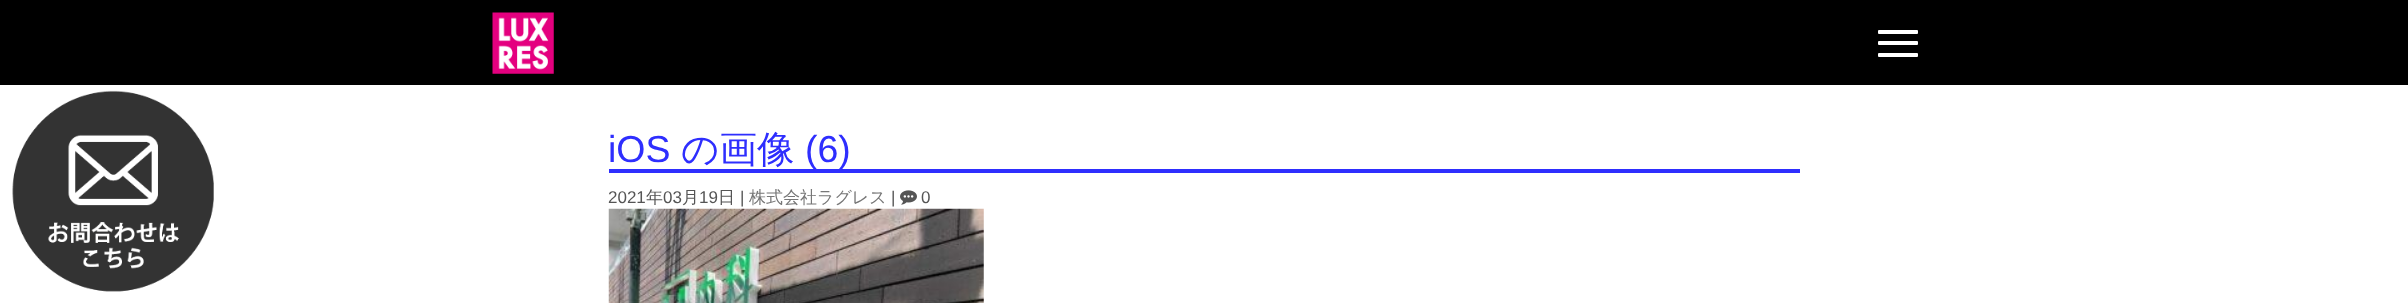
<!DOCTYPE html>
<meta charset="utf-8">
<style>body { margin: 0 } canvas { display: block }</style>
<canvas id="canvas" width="2408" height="303"></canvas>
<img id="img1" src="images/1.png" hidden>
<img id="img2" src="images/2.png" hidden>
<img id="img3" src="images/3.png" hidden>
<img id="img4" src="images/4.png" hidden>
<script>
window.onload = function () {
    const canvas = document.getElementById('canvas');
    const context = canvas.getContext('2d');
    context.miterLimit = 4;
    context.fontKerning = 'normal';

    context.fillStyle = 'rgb(255, 255, 255)';
    context.fillRect(0, 0, 2408, 303);
    context.fillStyle = 'rgb(0, 0, 0)';
    context.fillRect(0, 0, 2408, 85);
    context.drawImage(document.getElementById('img1'), 492, 12, 62, 62);
    context.fillStyle = 'rgb(255, 255, 255)';
    context.beginPath();
    context.roundRect(1878, 30, 40, 4, 1);
    context.fill();
    context.beginPath();
    context.roundRect(1878, 41, 40, 4, 1);
    context.fill();
    context.beginPath();
    context.roundRect(1878, 53, 40, 4, 1);
    context.fill();
    context.drawImage(document.getElementById('img2'), 12, 90, 202, 202);
    context.fillStyle = 'rgb(46, 46, 254)';
    context.fillRect(609, 169, 1191, 4);
    context.drawImage(document.getElementById('img3'), 900, 190, 17, 15);
    context.drawImage(document.getElementById('img4'), 608, 208, 376, 95);
    context.font = '37.5px Liberation Sans';
    context.fillText('iOS', 608, 162);
    context.font = '500 37.5px WenQuanYi Zen Hei';
    context.fillText('の画像', 681, 162);
    context.font = '37.5px Liberation Sans';
    context.fillText('(6)', 805, 162);
    context.font = '17px Liberation Sans';
    context.fillStyle = 'rgb(85, 85, 85)';
    context.fillText('2021', 608, 203);
    context.font = '500 17px WenQuanYi Zen Hei';
    context.fillText('年', 646, 203);
    context.font = '17px Liberation Sans';
    context.fillText('03', 663, 203);
    context.font = '500 17px WenQuanYi Zen Hei';
    context.fillText('月', 682, 203);
    context.font = '17px Liberation Sans';
    context.fillText('19', 699, 203);
    context.font = '500 17px WenQuanYi Zen Hei';
    context.fillText('日', 718, 203);
    context.font = '17px Liberation Sans';
    context.fillText('|', 740, 203);
    context.font = '500 17px WenQuanYi Zen Hei';
    context.fillStyle = 'rgb(119, 119, 119)';
    context.fillText('株式会社ラグレス', 749, 203);
    context.font = '17px Liberation Sans';
    context.fillStyle = 'rgb(85, 85, 85)';
    context.fillText('|', 891, 203);
    context.fillText('0', 921, 203);
};
</script>
